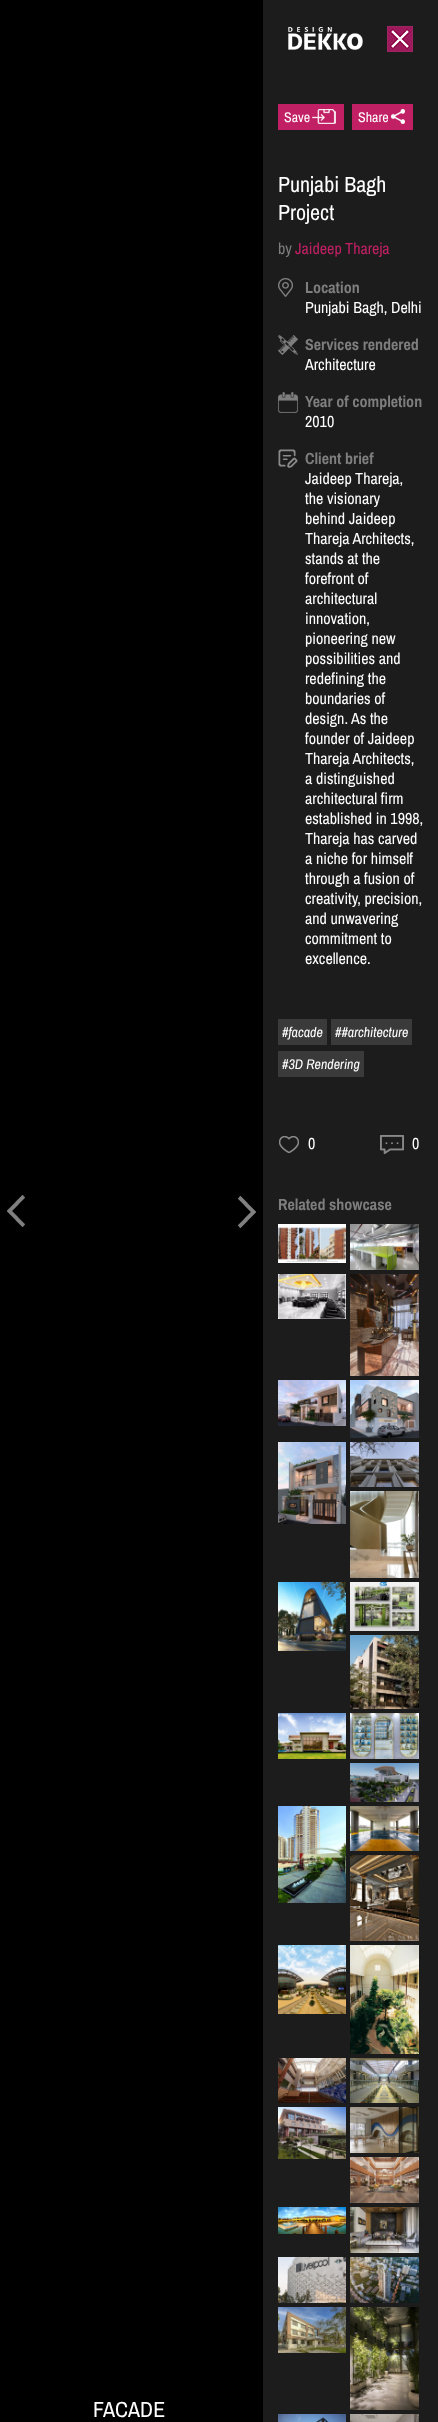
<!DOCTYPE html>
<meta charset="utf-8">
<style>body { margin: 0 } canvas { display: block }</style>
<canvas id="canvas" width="438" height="2422"></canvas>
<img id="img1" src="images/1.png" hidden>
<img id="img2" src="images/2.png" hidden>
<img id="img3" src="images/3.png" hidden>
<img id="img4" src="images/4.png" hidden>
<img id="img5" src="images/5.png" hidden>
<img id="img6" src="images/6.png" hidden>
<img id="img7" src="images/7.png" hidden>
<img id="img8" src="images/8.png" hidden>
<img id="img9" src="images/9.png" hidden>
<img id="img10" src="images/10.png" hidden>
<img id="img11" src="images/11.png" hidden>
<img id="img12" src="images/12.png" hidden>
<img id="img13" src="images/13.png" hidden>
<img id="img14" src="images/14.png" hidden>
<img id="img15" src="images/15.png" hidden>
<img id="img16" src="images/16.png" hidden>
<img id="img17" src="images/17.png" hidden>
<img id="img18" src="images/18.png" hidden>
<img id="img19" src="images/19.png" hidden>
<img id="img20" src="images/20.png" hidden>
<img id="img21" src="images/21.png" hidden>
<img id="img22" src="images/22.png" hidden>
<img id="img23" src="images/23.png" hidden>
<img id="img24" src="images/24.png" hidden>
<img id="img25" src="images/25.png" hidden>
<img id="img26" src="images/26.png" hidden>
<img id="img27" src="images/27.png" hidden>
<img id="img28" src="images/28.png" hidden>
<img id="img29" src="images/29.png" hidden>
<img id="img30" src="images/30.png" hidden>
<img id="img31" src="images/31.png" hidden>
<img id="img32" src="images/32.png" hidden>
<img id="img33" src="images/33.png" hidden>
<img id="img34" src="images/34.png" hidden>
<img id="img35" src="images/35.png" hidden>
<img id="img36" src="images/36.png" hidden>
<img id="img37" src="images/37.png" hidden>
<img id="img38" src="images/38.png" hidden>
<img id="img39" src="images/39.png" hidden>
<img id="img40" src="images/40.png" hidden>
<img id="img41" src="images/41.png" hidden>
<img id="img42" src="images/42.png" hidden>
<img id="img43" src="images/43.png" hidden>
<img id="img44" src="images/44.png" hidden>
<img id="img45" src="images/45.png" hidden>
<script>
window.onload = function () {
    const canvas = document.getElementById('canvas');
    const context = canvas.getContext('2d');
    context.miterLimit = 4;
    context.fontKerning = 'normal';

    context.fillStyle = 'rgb(0, 0, 0)';
    context.fillRect(0, 0, 438, 2422);
    context.fillStyle = 'rgb(28, 28, 28)';
    context.fillRect(263, 0, 175, 2422);
    context.drawImage(document.getElementById('img1'), 288, 27, 75, 23);
    context.drawImage(document.getElementById('img2'), 387, 26, 26, 26);
    context.fillStyle = 'rgb(193, 32, 101)';
    context.fillRect(278, 104, 66, 26);
    context.drawImage(document.getElementById('img3'), 312, 109, 24, 15);
    context.fillRect(352, 104, 61, 26);
    context.drawImage(document.getElementById('img4'), 391, 109, 14, 15);
    context.drawImage(document.getElementById('img5'), 278, 278, 15, 19);
    context.drawImage(document.getElementById('img6'), 278, 335, 20, 20);
    context.drawImage(document.getElementById('img7'), 278, 392, 20, 21);
    context.drawImage(document.getElementById('img8'), 278, 449, 20, 19);
    context.fillStyle = 'rgb(58, 58, 58)';
    context.fillRect(278, 1019, 49, 26);
    context.fillRect(331, 1019, 81, 26);
    context.fillRect(278, 1051, 86, 26);
    context.drawImage(document.getElementById('img9'), 279, 1136, 20, 17);
    context.drawImage(document.getElementById('img10'), 380, 1135, 24, 19);
    context.drawImage(document.getElementById('img11'), 278, 1224, 68, 39);
    context.drawImage(document.getElementById('img12'), 350, 1224, 69, 46);
    context.drawImage(document.getElementById('img13'), 278, 1274, 68, 45);
    context.drawImage(document.getElementById('img14'), 350, 1274, 69, 102);
    context.drawImage(document.getElementById('img15'), 278, 1380, 68, 46);
    context.drawImage(document.getElementById('img16'), 350, 1380, 69, 58);
    context.drawImage(document.getElementById('img17'), 278, 1442, 68, 82);
    context.drawImage(document.getElementById('img18'), 350, 1442, 69, 45);
    context.drawImage(document.getElementById('img19'), 350, 1491, 69, 87);
    context.drawImage(document.getElementById('img20'), 278, 1582, 68, 69);
    context.drawImage(document.getElementById('img21'), 350, 1582, 69, 49);
    context.drawImage(document.getElementById('img22'), 350, 1635, 69, 74);
    context.drawImage(document.getElementById('img23'), 278, 1713, 68, 46);
    context.drawImage(document.getElementById('img24'), 350, 1713, 69, 46);
    context.drawImage(document.getElementById('img25'), 350, 1763, 69, 39);
    context.drawImage(document.getElementById('img26'), 278, 1806, 68, 97);
    context.drawImage(document.getElementById('img27'), 350, 1806, 69, 45);
    context.drawImage(document.getElementById('img28'), 350, 1855, 69, 86);
    context.drawImage(document.getElementById('img29'), 278, 1945, 68, 69);
    context.drawImage(document.getElementById('img30'), 350, 1945, 69, 109);
    context.drawImage(document.getElementById('img31'), 278, 2058, 68, 45);
    context.drawImage(document.getElementById('img32'), 350, 2058, 69, 45);
    context.drawImage(document.getElementById('img33'), 278, 2107, 68, 52);
    context.drawImage(document.getElementById('img34'), 350, 2107, 69, 46);
    context.drawImage(document.getElementById('img35'), 350, 2157, 69, 46);
    context.drawImage(document.getElementById('img36'), 278, 2207, 68, 27);
    context.drawImage(document.getElementById('img37'), 350, 2207, 69, 46);
    context.drawImage(document.getElementById('img38'), 278, 2257, 68, 46);
    context.drawImage(document.getElementById('img39'), 350, 2257, 69, 46);
    context.drawImage(document.getElementById('img40'), 278, 2307, 68, 46);
    context.drawImage(document.getElementById('img41'), 350, 2307, 69, 103);
    context.drawImage(document.getElementById('img42'), 278, 2414, 68, 8);
    context.drawImage(document.getElementById('img43'), 350, 2414, 69, 8);
    context.drawImage(document.getElementById('img44'), 6, 1195, 19, 32);
    context.drawImage(document.getElementById('img45'), 238, 1196, 18, 32);
    context.font = '14px Archivo Narrow';
    context.fillStyle = 'rgb(255, 255, 255)';
    context.fillText('Save', 284, 122);
    context.fillText('Share', 358, 122);
    context.font = '22px Archivo Narrow';
    context.fillText('Punjabi Bagh', 278, 192);
    context.fillText('Project', 278, 220);
    context.font = '16px Archivo Narrow';
    context.fillStyle = 'rgb(126, 126, 126)';
    context.fillText('by', 278, 254);
    context.fillStyle = 'rgb(193, 32, 101)';
    context.fillText('Jaideep Thareja', 295, 254);
    context.font = 'bold 16px Archivo Narrow';
    context.fillStyle = 'rgb(126, 126, 126)';
    context.fillText('Location', 305, 293);
    context.font = '16px Archivo Narrow';
    context.fillStyle = 'rgb(255, 255, 255)';
    context.fillText('Punjabi Bagh, Delhi', 305, 313);
    context.font = 'bold 16px Archivo Narrow';
    context.fillStyle = 'rgb(126, 126, 126)';
    context.fillText('Services rendered', 305, 350);
    context.font = '16px Archivo Narrow';
    context.fillStyle = 'rgb(255, 255, 255)';
    context.fillText('Architecture', 305, 370);
    context.font = 'bold 16px Archivo Narrow';
    context.fillStyle = 'rgb(126, 126, 126)';
    context.fillText('Year of completion', 305, 407);
    context.font = '16px Archivo Narrow';
    context.fillStyle = 'rgb(255, 255, 255)';
    context.fillText('2010', 305, 427);
    context.font = 'bold 16px Archivo Narrow';
    context.fillStyle = 'rgb(126, 126, 126)';
    context.fillText('Client brief', 305, 464);
    context.font = '16px Archivo Narrow';
    context.fillStyle = 'rgb(255, 255, 255)';
    context.fillText('Jaideep Thareja,', 305, 484);
    context.fillText('the visionary', 305, 504);
    context.fillText('behind Jaideep', 305, 524);
    context.fillText('Thareja Architects,', 305, 544);
    context.fillText('stands at the', 305, 564);
    context.fillText('forefront of', 305, 584);
    context.fillText('architectural', 305, 604);
    context.fillText('innovation,', 305, 624);
    context.fillText('pioneering new', 305, 644);
    context.fillText('possibilities and', 305, 664);
    context.fillText('redefining the', 305, 684);
    context.fillText('boundaries of', 305, 704);
    context.fillText('design. As the', 305, 724);
    context.fillText('founder of Jaideep', 305, 744);
    context.fillText('Thareja Architects,', 305, 764);
    context.fillText('a distinguished', 305, 784);
    context.fillText('architectural firm', 305, 804);
    context.fillText('established in 1998,', 305, 824);
    context.fillText('Thareja has carved', 305, 844);
    context.fillText('a niche for himself', 305, 864);
    context.fillText('through a fusion of', 305, 884);
    context.fillText('creativity, precision,', 305, 904);
    context.fillText('and unwavering', 305, 924);
    context.fillText('commitment to', 305, 944);
    context.fillText('excellence.', 305, 964);
    context.font = 'italic 14px Archivo Narrow';
    context.fillText('#facade', 282, 1037);
    context.fillText('##architecture', 335, 1037);
    context.fillText('#3D Rendering', 282, 1069);
    context.font = '16px Archivo Narrow';
    context.fillText('0', 308, 1149);
    context.fillText('0', 412, 1149);
    context.font = 'bold 16px Archivo Narrow';
    context.fillStyle = 'rgb(126, 126, 126)';
    context.fillText('Related showcase', 278, 1210);
    context.font = '22px Archivo Narrow';
    context.fillStyle = 'rgb(255, 255, 255)';
    context.fillText('FACADE', 93, 2417);
};
</script>
